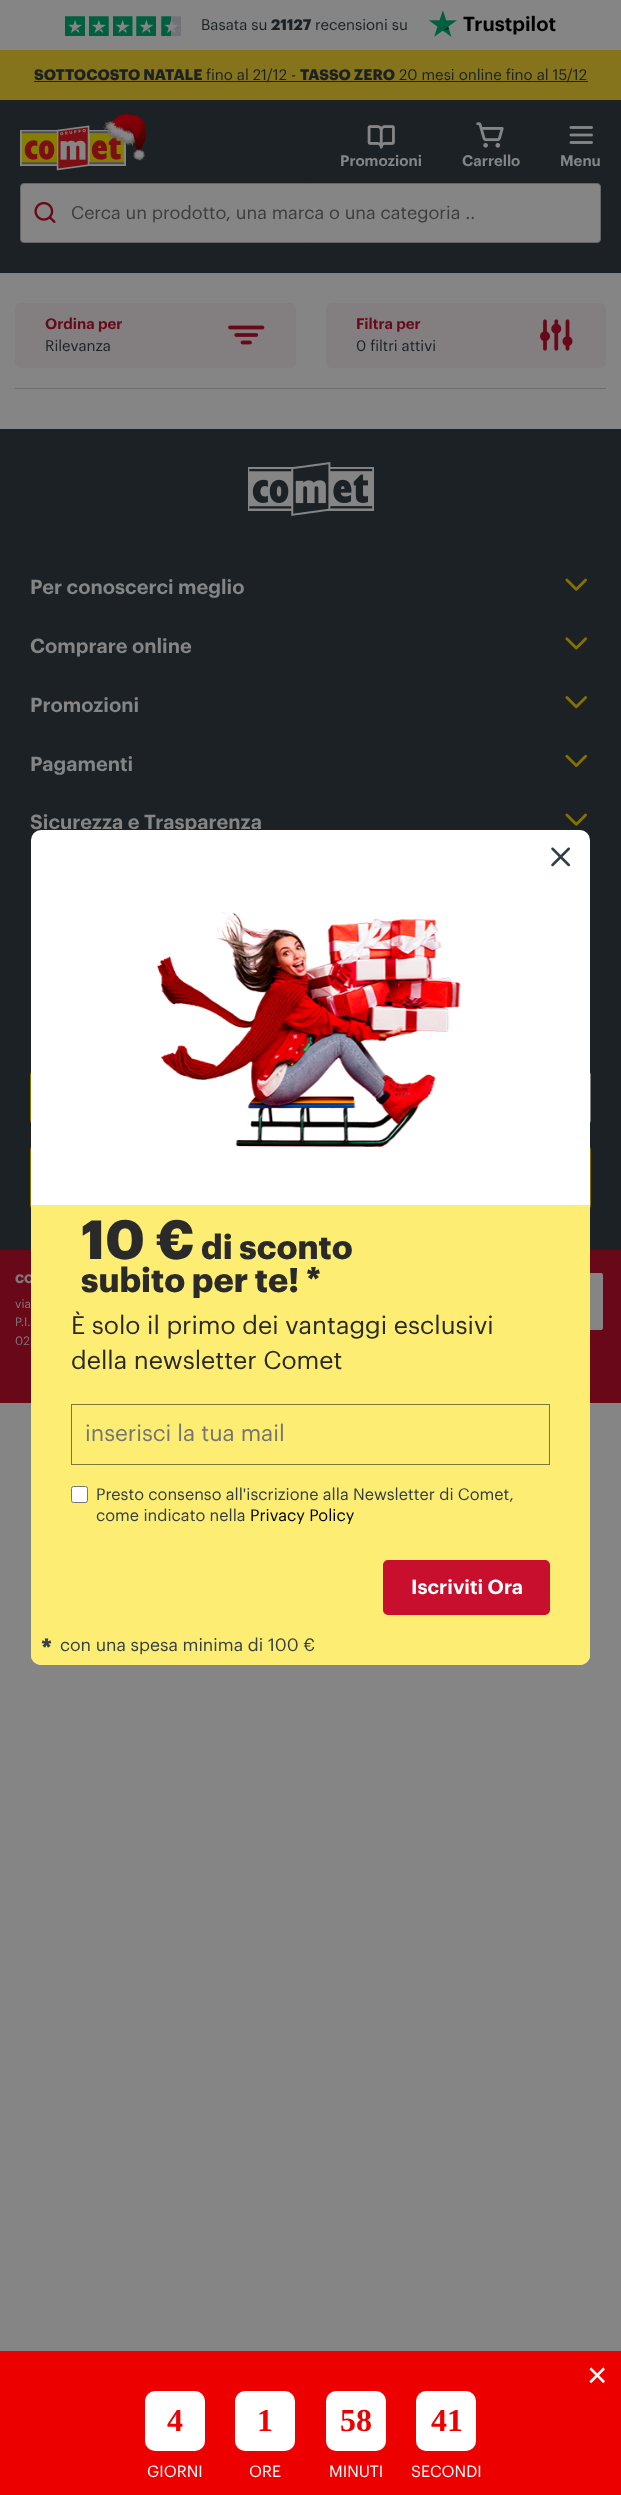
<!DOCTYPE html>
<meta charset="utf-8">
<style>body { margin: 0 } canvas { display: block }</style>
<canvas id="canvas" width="621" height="2495"></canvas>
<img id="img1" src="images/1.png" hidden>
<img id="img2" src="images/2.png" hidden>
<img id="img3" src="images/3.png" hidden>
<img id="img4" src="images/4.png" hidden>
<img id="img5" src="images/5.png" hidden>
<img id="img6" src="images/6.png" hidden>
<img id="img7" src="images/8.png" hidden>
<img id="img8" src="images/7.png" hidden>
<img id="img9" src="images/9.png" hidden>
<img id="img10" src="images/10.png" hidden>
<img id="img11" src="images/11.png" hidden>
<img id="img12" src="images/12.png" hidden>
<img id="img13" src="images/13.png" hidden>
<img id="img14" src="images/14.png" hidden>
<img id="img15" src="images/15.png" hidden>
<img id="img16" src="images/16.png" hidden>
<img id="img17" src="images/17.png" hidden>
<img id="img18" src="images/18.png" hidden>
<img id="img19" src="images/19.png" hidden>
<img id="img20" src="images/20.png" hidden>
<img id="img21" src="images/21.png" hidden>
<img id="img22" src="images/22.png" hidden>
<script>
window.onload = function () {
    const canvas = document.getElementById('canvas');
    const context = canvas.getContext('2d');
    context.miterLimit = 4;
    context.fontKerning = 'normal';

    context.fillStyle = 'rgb(133, 133, 133)';
    context.fillRect(0, 0, 621, 2495);
    context.drawImage(document.getElementById('img1'), 65, 16, 20, 20);
    context.drawImage(document.getElementById('img2'), 89, 16, 20, 20);
    context.drawImage(document.getElementById('img3'), 113, 16, 20, 20);
    context.drawImage(document.getElementById('img4'), 136, 16, 20, 20);
    context.drawImage(document.getElementById('img5'), 161, 16, 20, 20);
    context.drawImage(document.getElementById('img6'), 429, 10, 28, 27);
    context.fillStyle = 'rgb(133, 116, 27)';
    context.fillRect(0, 50, 621, 50);
    context.fillStyle = 'rgb(27, 33, 37)';
    context.fillRect(34, 81, 554, 1);
    context.fillRect(0, 100, 621, 173);
    context.drawImage(document.getElementById('img7'), 20, 125, 106, 46);
    context.drawImage(document.getElementById('img8'), 103, 113, 43, 48);
    context.drawImage(document.getElementById('img9'), 367, 125, 28, 24);
    context.drawImage(document.getElementById('img10'), 476, 122, 28, 26);
    context.drawImage(document.getElementById('img11'), 569, 126, 24, 18);
    context.fillStyle = 'rgb(133, 133, 133)';
    context.beginPath();
    context.roundRect(20.5, 183.5, 580, 59, 3.5);
    context.fill();
    context.strokeStyle = 'rgb(100, 102, 103)';
    context.stroke();
    context.drawImage(document.getElementById('img12'), 34, 201, 22, 22);
    context.fillStyle = 'rgb(131, 126, 127)';
    context.beginPath();
    context.roundRect(15, 303, 281, 65, 6);
    context.fill();
    context.drawImage(document.getElementById('img13'), 228, 325, 37, 20);
    context.beginPath();
    context.roundRect(326, 303, 280, 65, 6);
    context.fill();
    context.drawImage(document.getElementById('img14'), 540, 319, 33, 32);
    context.fillStyle = 'rgb(106, 108, 109)';
    context.fillRect(15, 388, 591, 1);
    context.fillStyle = 'rgb(27, 33, 37)';
    context.fillRect(0, 429, 621, 821);
    context.drawImage(document.getElementById('img15'), 248, 462, 126, 54);
    context.drawImage(document.getElementById('img16'), 565, 578, 22, 13);
    context.drawImage(document.getElementById('img17'), 565, 637, 22, 13);
    context.drawImage(document.getElementById('img18'), 565, 696, 22, 13);
    context.drawImage(document.getElementById('img19'), 565, 754, 22, 13);
    context.drawImage(document.getElementById('img16'), 565, 813, 22, 13);
    context.beginPath();
    context.roundRect(31.5, 1071.5, 172, 52, 3.5);
    context.strokeStyle = 'rgb(133, 112, 0)';
    context.lineWidth = 3;
    context.stroke();
    context.drawImage(document.getElementById('img20'), 590, 1072, 1, 51);
    context.fillStyle = 'rgb(133, 112, 0)';
    context.beginPath();
    context.roundRect(30, 1145, 561, 65, 5);
    context.fill();
    context.fillStyle = 'rgb(104, 8, 24)';
    context.fillRect(0, 1250, 621, 153);
    context.fillStyle = 'rgb(133, 133, 133)';
    context.beginPath();
    context.roundRect(454.5, 1271.5, 150, 60, 3.5);
    context.fill();
    context.strokeStyle = 'rgb(104, 8, 24)';
    context.stroke();
    context.fillStyle = 'rgb(236, 0, 0)';
    context.fillRect(0, 2351, 621, 144);
    context.fillStyle = 'rgb(255, 255, 255)';
    context.beginPath();
    context.roundRect(145, 2391, 60, 60, 10);
    context.fill();
    context.beginPath();
    context.roundRect(235, 2391, 60, 60, 10);
    context.fill();
    context.beginPath();
    context.roundRect(326, 2391, 60, 60, 10);
    context.fill();
    context.beginPath();
    context.roundRect(416, 2391, 60, 60, 10);
    context.fill();
    context.font = '15px Graphik';
    context.fillStyle = 'rgb(27, 33, 37)';
    context.fillText('Basata su', 201, 30);
    context.font = 'bold 15px Graphik';
    context.fillText('21127', 271, 30);
    context.font = '15px Graphik';
    context.fillText('recensioni su', 315, 30);
    context.font = '600 20px Graphik';
    context.fillStyle = 'rgb(0, 0, 0)';
    context.fillText('Trustpilot', 463, 31);
    context.font = 'bold 15px Graphik';
    context.fillStyle = 'rgb(27, 33, 37)';
    context.fillText('SOTTOCOSTO NATALE', 34, 80);
    context.font = '15px Graphik';
    context.fillText('fino al 21/12 -', 206, 80);
    context.font = 'bold 15px Graphik';
    context.fillText('TASSO ZERO', 300, 80);
    context.font = '15px Graphik';
    context.fillText('20 mesi online fino al 15/12', 399, 80);
    context.font = '600 15px Graphik';
    context.fillStyle = 'rgb(133, 133, 133)';
    context.fillText('Promozioni', 340, 166);
    context.fillText('Carrello', 462, 166);
    context.fillText('Menu', 560, 166);
    context.font = '18px Graphik';
    context.fillStyle = 'rgb(61, 61, 61)';
    context.fillText('Cerca un prodotto, una marca o una categoria ..', 71, 219);
    context.font = '600 15px Graphik';
    context.fillStyle = 'rgb(104, 8, 24)';
    context.fillText('Ordina per', 45, 329);
    context.font = '15px Graphik';
    context.fillStyle = 'rgb(27, 33, 37)';
    context.fillText('Rilevanza', 45, 351);
    context.font = '600 15px Graphik';
    context.fillStyle = 'rgb(104, 8, 24)';
    context.fillText('Filtra per', 356, 329);
    context.font = '15px Graphik';
    context.fillStyle = 'rgb(27, 33, 37)';
    context.fillText('0 filtri attivi', 356, 351);
    context.font = '600 20px Graphik';
    context.fillStyle = 'rgb(133, 133, 133)';
    context.fillText('Per conoscerci meglio', 30, 594);
    context.fillText('Comprare online', 30, 653);
    context.fillText('Promozioni', 30, 712);
    context.fillText('Pagamenti', 30, 771);
    context.fillText('Sicurezza e Trasparenza', 30, 829);
    context.font = 'bold 12px Graphik';
    context.fillStyle = 'rgb(130, 120, 121)';
    context.fillText('CO', 15, 1283);
    context.font = '12px Graphik';
    context.fillText('via', 15, 1308);
    context.fillText('P.I.', 15, 1326);
    context.fillText('02', 15, 1345);
    context.fillStyle = 'rgb(255, 255, 255)';
    context.beginPath();
    context.roundRect(31, 830, 559, 835, 10);
    context.fill();
    context.drawImage(document.getElementById('img21'), 551, 847, 19, 20);
    context.drawImage(document.getElementById('img22'), 157, 912, 304, 236);
    context.fillStyle = 'rgb(253, 237, 115)';
    context.beginPath();
    context.roundRect(31, 1205, 559, 460, [0, 0, 10, 10]);
    context.fill();
    context.font = 'bold 54px Graphik';
    context.fillStyle = 'rgb(42, 42, 42)';
    context.fillText('10 €', 81, 1259);
    context.font = 'bold 33.75px Graphik';
    context.fillText('di sconto', 201, 1259);
    context.fillText('subito per te! *', 81, 1292);
    context.font = '25px Graphik';
    context.fillText('È solo il primo dei vantaggi esclusivi', 71, 1334);
    context.fillText('della newsletter Comet', 71, 1369);
    context.strokeStyle = 'rgb(127, 119, 58)';
    context.lineWidth = 1;
    context.strokeRect(71.5, 1404.5, 478, 60);
    context.font = '22.5px Graphik';
    context.fillStyle = 'rgb(117, 117, 117)';
    context.fillText('inserisci la tua mail', 85, 1441);
    context.fillStyle = 'rgb(255, 255, 255)';
    context.beginPath();
    context.roundRect(71.5, 1486.5, 16, 16, 2);
    context.fill();
    context.strokeStyle = 'rgb(118, 118, 118)';
    context.stroke();
    context.font = '16.25px Graphik';
    context.fillStyle = 'rgb(51, 63, 72)';
    context.fillText('Presto consenso all\'iscrizione alla Newsletter di Comet,', 96, 1500);
    context.fillText('come indicato nella', 96, 1521);
    context.fillStyle = 'rgb(0, 0, 0)';
    context.fillText('Privacy Policy', 250, 1521);
    context.fillStyle = 'rgb(200, 16, 46)';
    context.beginPath();
    context.roundRect(384.5, 1561.5, 164, 52, 3.5);
    context.fill();
    context.strokeStyle = 'rgb(200, 16, 46)';
    context.lineWidth = 3;
    context.stroke();
    context.font = '600 20px Graphik';
    context.fillStyle = 'rgb(255, 255, 255)';
    context.fillText('Iscriviti Ora', 411, 1594);
    context.font = 'bold 25px Graphik';
    context.fillStyle = 'rgb(51, 63, 72)';
    context.fillText('*', 41, 1657);
    context.font = '17.5px Graphik';
    context.fillText('con una spesa minima di 100 €', 60, 1651);
    context.font = '35px Liberation Sans';
    context.fillStyle = 'rgb(255, 255, 255)';
    context.fillText('×', 587, 2387);
    context.font = 'bold 32px Liberation Serif';
    context.fillStyle = 'rgb(236, 0, 0)';
    context.fillText('4', 167, 2431);
    context.font = '16px Graphik';
    context.fillStyle = 'rgb(255, 255, 255)';
    context.fillText('GIORNI', 147, 2477);
    context.font = 'bold 32px Liberation Serif';
    context.fillStyle = 'rgb(236, 0, 0)';
    context.fillText('1', 257, 2431);
    context.font = '16px Graphik';
    context.fillStyle = 'rgb(255, 255, 255)';
    context.fillText('ORE', 249, 2477);
    context.font = 'bold 32px Liberation Serif';
    context.fillStyle = 'rgb(236, 0, 0)';
    context.fillText('58', 340, 2431);
    context.font = '16px Graphik';
    context.fillStyle = 'rgb(255, 255, 255)';
    context.fillText('MINUTI', 329, 2477);
    context.font = 'bold 32px Liberation Serif';
    context.fillStyle = 'rgb(236, 0, 0)';
    context.fillText('41', 431, 2431);
    context.font = '16px Graphik';
    context.fillStyle = 'rgb(255, 255, 255)';
    context.fillText('SECONDI', 411, 2477);
};
</script>
